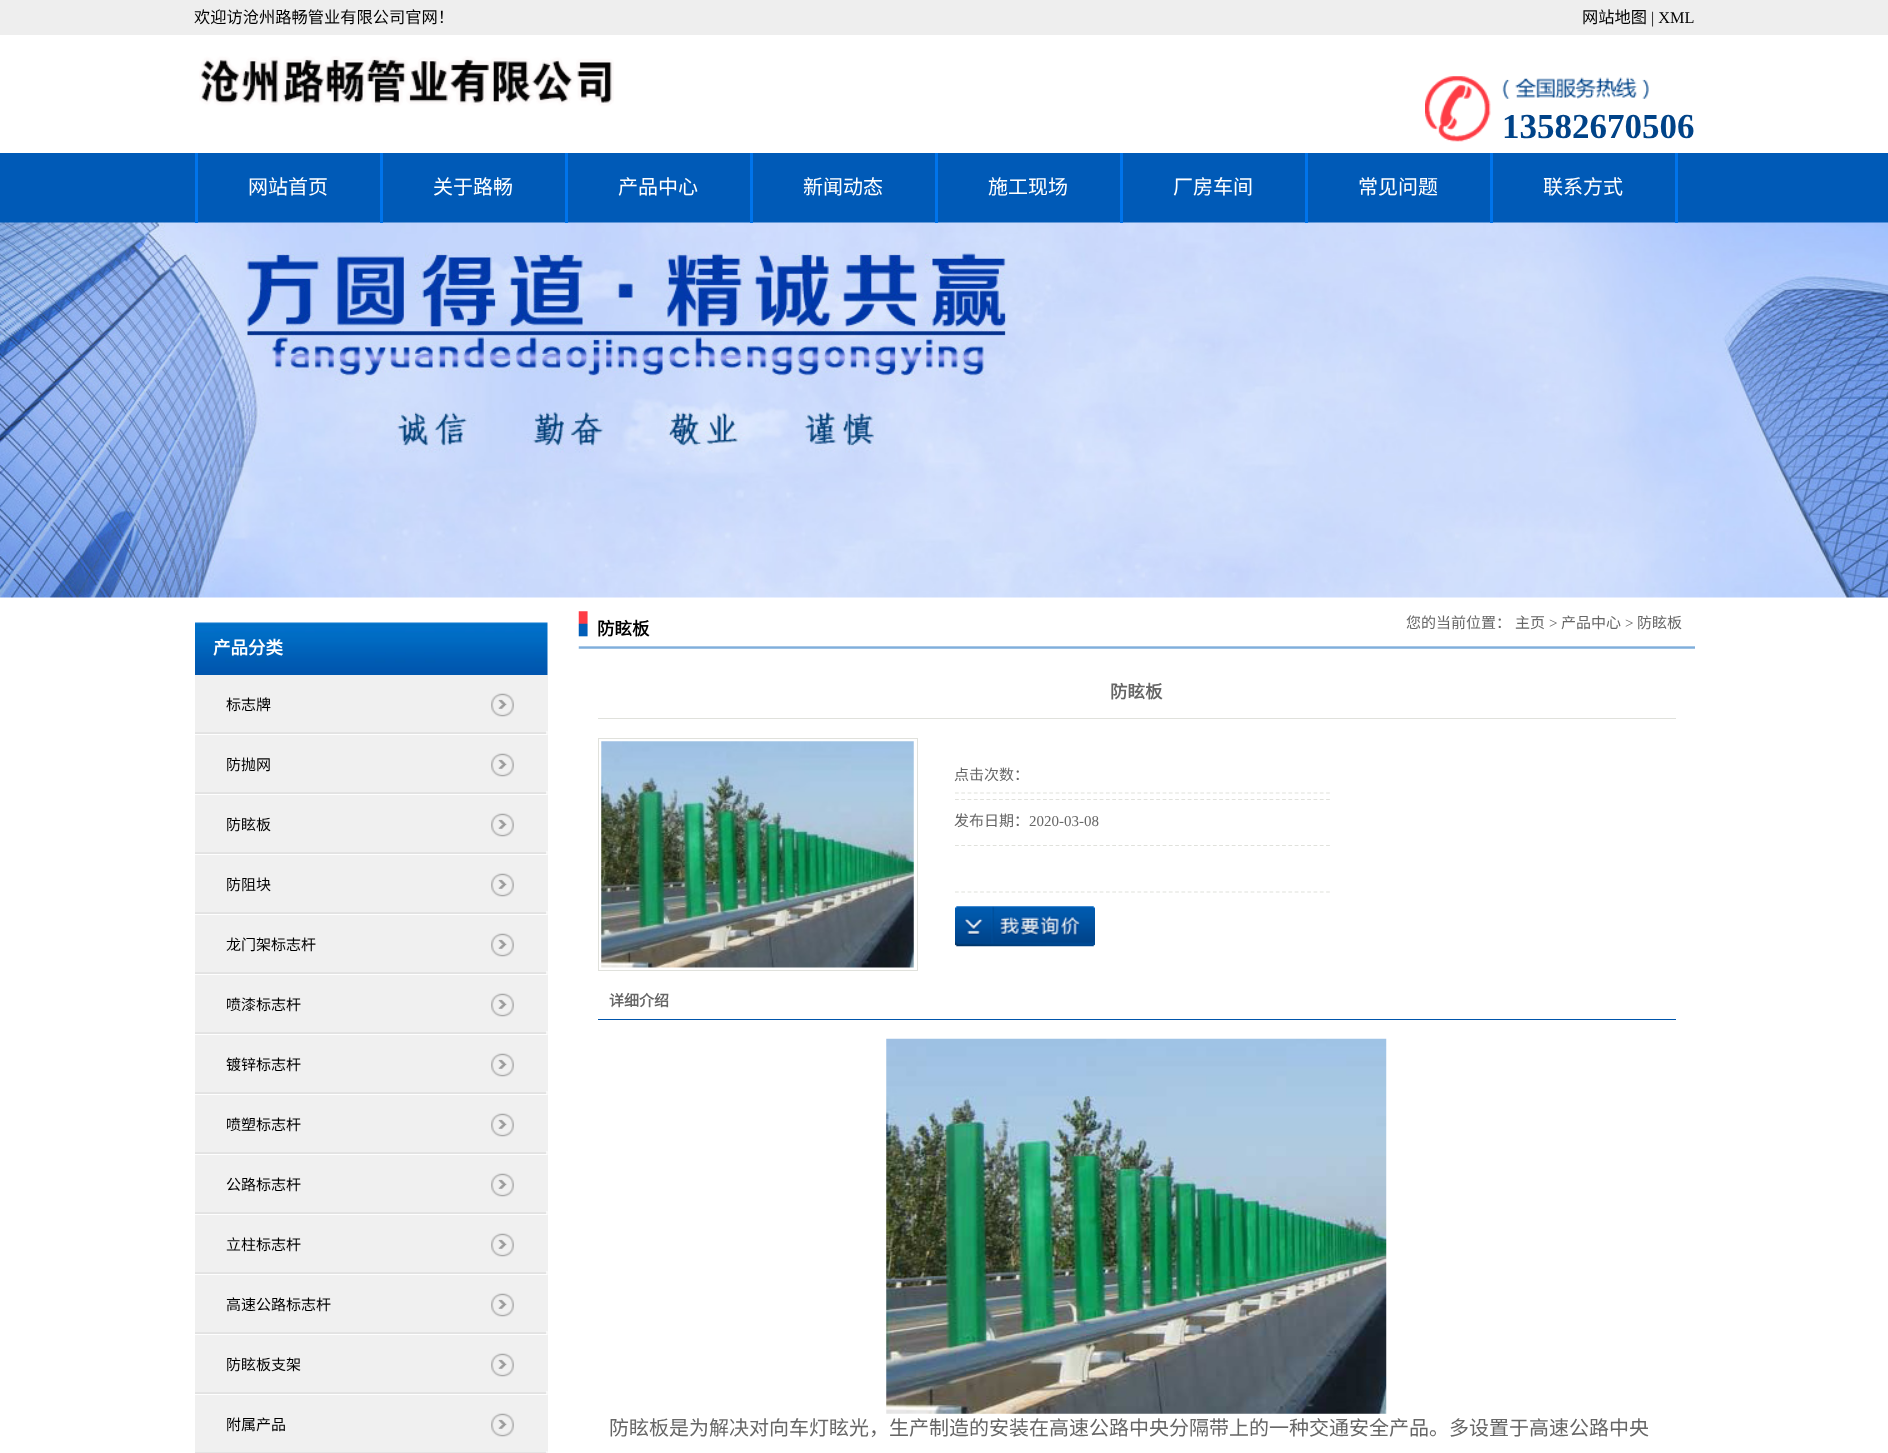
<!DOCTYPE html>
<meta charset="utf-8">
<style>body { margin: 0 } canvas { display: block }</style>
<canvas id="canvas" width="1888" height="1453"></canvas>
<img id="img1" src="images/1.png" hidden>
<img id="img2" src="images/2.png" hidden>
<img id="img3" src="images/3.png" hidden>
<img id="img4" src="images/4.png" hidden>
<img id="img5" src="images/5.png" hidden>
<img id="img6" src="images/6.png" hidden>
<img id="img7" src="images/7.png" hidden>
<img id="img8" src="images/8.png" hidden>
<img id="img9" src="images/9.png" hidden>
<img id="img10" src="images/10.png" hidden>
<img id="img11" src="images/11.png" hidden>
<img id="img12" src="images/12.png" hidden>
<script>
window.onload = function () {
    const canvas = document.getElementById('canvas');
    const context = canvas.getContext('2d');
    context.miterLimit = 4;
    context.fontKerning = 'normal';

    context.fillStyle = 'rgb(255, 255, 255)';
    context.fillRect(0, 0, 1888, 1453);
    context.fillStyle = 'rgb(238, 238, 238)';
    context.fillRect(0, 0, 1888, 35);
    context.drawImage(document.getElementById('img1'), 199, 56, 415, 50);
    context.drawImage(document.getElementById('img2'), 1425, 76, 224, 66);
    context.fillStyle = 'rgb(0, 90, 183)';
    context.fillRect(0, 153, 1888, 70);
    context.drawImage(document.getElementById('img3'), 0, 222, 1888, 376);
    context.fillStyle = 'rgb(0, 116, 236)';
    context.fillRect(195, 153, 3, 70);
    context.fillRect(380, 153, 3, 70);
    context.fillRect(565, 153, 3, 70);
    context.fillRect(750, 153, 3, 70);
    context.fillRect(935, 153, 3, 70);
    context.fillRect(1120, 153, 3, 70);
    context.fillRect(1305, 153, 3, 70);
    context.fillRect(1675, 153, 3, 70);
    context.fillRect(1490, 153, 3, 70);
    context.drawImage(document.getElementById('img4'), 195, 622, 353, 53);
    context.fillStyle = 'rgb(240, 240, 240)';
    context.fillRect(195, 675, 353, 778);
    context.drawImage(document.getElementById('img5'), 195, 731, 353, 4);
    context.drawImage(document.getElementById('img6'), 491, 693, 23, 24);
    context.drawImage(document.getElementById('img5'), 195, 791, 353, 4);
    context.drawImage(document.getElementById('img6'), 491, 753, 23, 24);
    context.drawImage(document.getElementById('img5'), 195, 851, 353, 4);
    context.drawImage(document.getElementById('img6'), 491, 813, 23, 24);
    context.drawImage(document.getElementById('img5'), 195, 911, 353, 4);
    context.drawImage(document.getElementById('img6'), 491, 873, 23, 24);
    context.drawImage(document.getElementById('img5'), 195, 971, 353, 4);
    context.drawImage(document.getElementById('img6'), 491, 933, 23, 24);
    context.drawImage(document.getElementById('img5'), 195, 1031, 353, 4);
    context.drawImage(document.getElementById('img6'), 491, 993, 23, 24);
    context.drawImage(document.getElementById('img5'), 195, 1091, 353, 4);
    context.drawImage(document.getElementById('img6'), 491, 1053, 23, 24);
    context.drawImage(document.getElementById('img5'), 195, 1151, 353, 4);
    context.drawImage(document.getElementById('img6'), 491, 1113, 23, 24);
    context.drawImage(document.getElementById('img5'), 195, 1211, 353, 4);
    context.drawImage(document.getElementById('img7'), 491, 1173, 23, 24);
    context.drawImage(document.getElementById('img5'), 195, 1271, 353, 4);
    context.drawImage(document.getElementById('img6'), 491, 1233, 23, 24);
    context.drawImage(document.getElementById('img5'), 195, 1331, 353, 4);
    context.drawImage(document.getElementById('img6'), 491, 1293, 23, 24);
    context.drawImage(document.getElementById('img5'), 195, 1391, 353, 4);
    context.drawImage(document.getElementById('img6'), 491, 1353, 23, 24);
    context.drawImage(document.getElementById('img8'), 195, 1451, 353, 2);
    context.drawImage(document.getElementById('img6'), 491, 1413, 23, 24);
    context.drawImage(document.getElementById('img9'), 578, 611, 1117, 38);
    context.fillStyle = 'rgb(224, 225, 220)';
    context.fillRect(598, 718, 1078, 1);
    context.strokeStyle = 'rgb(224, 225, 220)';
    context.strokeRect(598.5, 738.5, 319, 232);
    context.drawImage(document.getElementById('img10'), 601, 741, 313, 227);
    context.beginPath();
    context.moveTo(955, 793);
    context.lineTo(1330, 793);
    context.lineWidth = 1.2;
    context.setLineDash([3.75, 2.54]);
    context.stroke();
    context.beginPath();
    context.moveTo(955, 799.5);
    context.lineTo(1330, 799.5);
    context.stroke();
    context.beginPath();
    context.moveTo(955, 845.5);
    context.lineTo(1330, 845.5);
    context.stroke();
    context.beginPath();
    context.moveTo(955, 892);
    context.lineTo(1330, 892);
    context.stroke();
    context.drawImage(document.getElementById('img11'), 955, 906, 140, 41);
    context.fillStyle = 'rgb(0, 85, 172)';
    context.fillRect(598, 1019, 1078, 1);
    context.drawImage(document.getElementById('img12'), 886, 1038, 501, 376);
    context.font = '16.25px Noto Sans CJK SC';
    context.fillStyle = 'rgb(0, 0, 0)';
    context.fillText('欢迎访沧州路畅管业有限公司官网！', 194, 23);
    context.fillText('网站地图', 1582, 23);
    context.font = '16.25px Liberation Serif';
    context.fillText('| XML', 1651, 23);
    context.font = 'bold 35px Liberation Serif';
    context.fillStyle = 'rgb(0, 67, 136)';
    context.fillText('13582670506', 1502, 138);
    context.font = '20px Noto Sans CJK SC';
    context.fillStyle = 'rgb(255, 255, 255)';
    context.fillText('网站首页', 248, 194);
    context.fillText('关于路畅', 433, 194);
    context.fillText('产品中心', 618, 194);
    context.fillText('新闻动态', 803, 194);
    context.fillText('施工现场', 988, 194);
    context.fillText('厂房车间', 1173, 194);
    context.fillText('常见问题', 1358, 194);
    context.fillText('联系方式', 1543, 194);
    context.font = 'bold 17.5px Noto Sans CJK SC';
    context.fillText('产品分类', 213, 654);
    context.font = '15px Noto Sans CJK SC';
    context.fillStyle = 'rgb(0, 0, 0)';
    context.fillText('标志牌', 226, 710);
    context.fillText('防抛网', 226, 770);
    context.fillText('防眩板', 226, 830);
    context.fillText('防阻块', 226, 890);
    context.fillText('龙门架标志杆', 226, 950);
    context.fillText('喷漆标志杆', 226, 1010);
    context.fillText('镀锌标志杆', 226, 1070);
    context.fillText('喷塑标志杆', 226, 1130);
    context.fillText('公路标志杆', 226, 1190);
    context.fillText('立柱标志杆', 226, 1250);
    context.fillText('高速公路标志杆', 226, 1310);
    context.fillText('防眩板支架', 226, 1370);
    context.fillText('附属产品', 226, 1430);
    context.font = 'bold 17.5px Noto Sans CJK SC';
    context.fillText('防眩板', 597, 635);
    context.font = '15px Noto Sans CJK SC';
    context.fillStyle = 'rgb(102, 102, 102)';
    context.fillText('您的当前位置：', 1406, 628);
    context.fillText('主页', 1515, 628);
    context.font = '15px Liberation Serif';
    context.fillText('>', 1549, 628);
    context.font = '15px Noto Sans CJK SC';
    context.fillText('产品中心', 1561, 628);
    context.font = '15px Liberation Serif';
    context.fillText('>', 1625, 628);
    context.font = '15px Noto Sans CJK SC';
    context.fillText('防眩板', 1637, 628);
    context.font = 'bold 17.5px Noto Sans CJK SC';
    context.fillText('防眩板', 1110, 698);
    context.font = '15px Noto Sans CJK SC';
    context.fillText('点击次数：', 954, 780);
    context.fillText('发布日期：', 954, 826);
    context.font = '15px Liberation Serif';
    context.fillText('2020-03-08', 1029, 826);
    context.font = 'bold 15px Noto Sans CJK SC';
    context.fillText('详细介绍', 609, 1006);
    context.font = '20px Noto Sans CJK SC';
    context.fillText('防眩板是为解决对向车灯眩光，生产制造的安装在高速公路中央分隔带上的一种交通安全产品。多设置于高速公路中央', 609, 1435);
};
</script>
